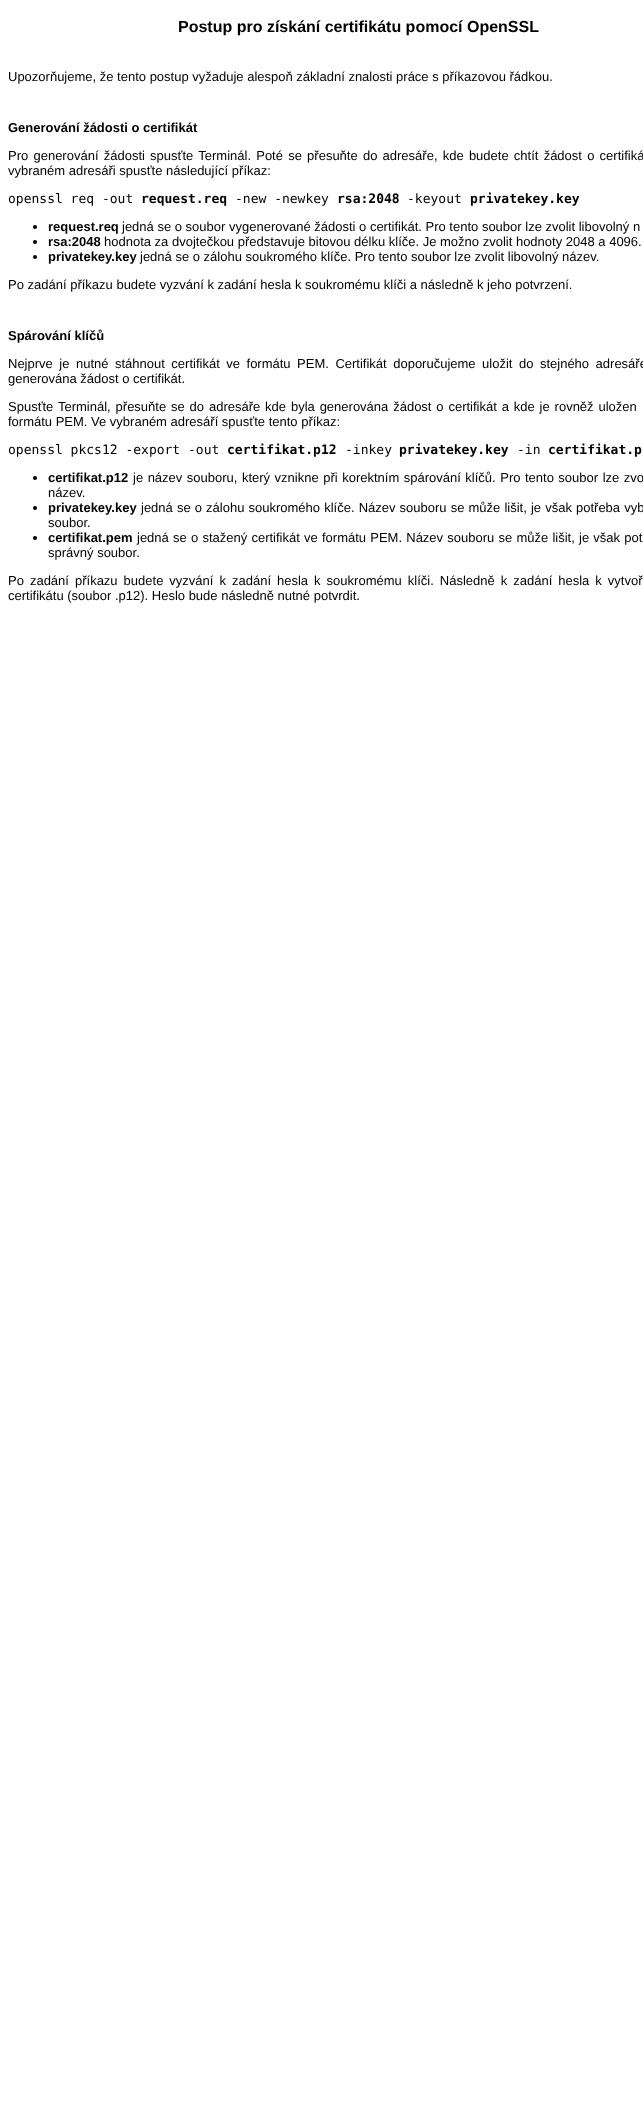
<!DOCTYPE html>
<meta charset="utf-8">
<style>body { margin: 0 } canvas { display: block }</style>
<canvas id="canvas" width="643" height="2109"></canvas>
<script>
window.onload = function () {
    const canvas = document.getElementById('canvas');
    const context = canvas.getContext('2d');
    context.miterLimit = 4;
    context.fontKerning = 'normal';

    context.fillStyle = 'rgb(255, 255, 255)';
    context.fillRect(0, 0, 643, 2109);
    context.fillStyle = 'rgb(0, 0, 0)';
    context.beginPath();
    context.arc(35, 227, 2, 0, 2 * Math.PI);
    context.fill();
    context.beginPath();
    context.arc(35, 242, 2, 0, 2 * Math.PI);
    context.fill();
    context.beginPath();
    context.arc(35, 257, 2, 0, 2 * Math.PI);
    context.fill();
    context.beginPath();
    context.arc(35, 478, 2, 0, 2 * Math.PI);
    context.fill();
    context.beginPath();
    context.arc(35, 508, 2, 0, 2 * Math.PI);
    context.fill();
    context.beginPath();
    context.arc(35, 538, 2, 0, 2 * Math.PI);
    context.fill();
    context.font = 'bold 16px Liberation Sans';
    context.fillText('Postup pro získání certifikátu pomocí OpenSSL', 178, 32);
    context.font = '13px Liberation Sans';
    context.fillText('Upozorňujeme, že tento postup vyžaduje alespoň základní znalosti práce s příkazovou řádkou.', 8, 81);
    context.font = 'bold 13px Liberation Sans';
    context.fillText('Generování žádosti o certifikát', 8, 132);
    context.wordSpacing = '1.6px';
    context.font = '13px Liberation Sans';
    context.fillText('Pro generování žádosti spusťte Terminál. Poté se přesuňte do adresáře, kde budete chtít žádost o certifiká', 8, 160);
    context.wordSpacing = '0px';
    context.fillText('vybraném adresáři spusťte následující příkaz:', 8, 175);
    context.font = '13px DejaVu Sans Mono';
    context.fillText('openssl req -out', 8, 203);
    context.font = 'bold 13px DejaVu Sans Mono';
    context.fillText('request.req', 141, 203);
    context.font = '13px DejaVu Sans Mono';
    context.fillText('-new -newkey', 235, 203);
    context.font = 'bold 13px DejaVu Sans Mono';
    context.fillText('rsa:2048', 337, 203);
    context.font = '13px DejaVu Sans Mono';
    context.fillText('-keyout', 407, 203);
    context.font = 'bold 13px DejaVu Sans Mono';
    context.fillText('privatekey.key', 470, 203);
    context.font = 'bold 13px Liberation Sans';
    context.fillText('request.req', 48, 231);
    context.font = '13px Liberation Sans';
    context.fillText('jedná se o soubor vygenerované žádosti o certifikát. Pro tento soubor lze zvolit libovolný n', 122, 231);
    context.font = 'bold 13px Liberation Sans';
    context.fillText('rsa:2048', 48, 246);
    context.font = '13px Liberation Sans';
    context.fillText('hodnota za dvojtečkou představuje bitovou délku klíče. Je možno zvolit hodnoty 2048 a 4096.', 104, 246);
    context.font = 'bold 13px Liberation Sans';
    context.fillText('privatekey.key', 48, 261);
    context.font = '13px Liberation Sans';
    context.fillText('jedná se o zálohu soukromého klíče. Pro tento soubor lze zvolit libovolný název.', 140, 261);
    context.fillText('Po zadání příkazu budete vyzvání k zadání hesla k soukromému klíči a následně k jeho potvrzení.', 8, 289);
    context.font = 'bold 13px Liberation Sans';
    context.fillText('Spárování klíčů', 8, 340);
    context.wordSpacing = '2.9px';
    context.font = '13px Liberation Sans';
    context.fillText('Nejprve je nutné stáhnout certifikát ve formátu PEM. Certifikát doporučujeme uložit do stejného adresáře', 8, 368);
    context.wordSpacing = '0px';
    context.fillText('generována žádost o certifikát.', 8, 383);
    context.wordSpacing = '1.25px';
    context.fillText('Spusťte Terminál, přesuňte se do adresáře kde byla generována žádost o certifikát a kde je rovněž uložen', 8, 411);
    context.wordSpacing = '0px';
    context.fillText('formátu PEM. Ve vybraném adresáří spusťte tento příkaz:', 8, 426);
    context.font = '13px DejaVu Sans Mono';
    context.fillText('openssl pkcs12 -export -out', 8, 454);
    context.font = 'bold 13px DejaVu Sans Mono';
    context.fillText('certifikat.p12', 227, 454);
    context.font = '13px DejaVu Sans Mono';
    context.fillText('-inkey', 345, 454);
    context.font = 'bold 13px DejaVu Sans Mono';
    context.fillText('privatekey.key', 399, 454);
    context.font = '13px DejaVu Sans Mono';
    context.fillText('-in', 517, 454);
    context.font = 'bold 13px DejaVu Sans Mono';
    context.fillText('certifikat.p', 548, 454);
    context.font = 'bold 13px Liberation Sans';
    context.fillText('certifikat.p12', 48, 482);
    context.wordSpacing = '0.9px';
    context.font = '13px Liberation Sans';
    context.fillText('je název souboru, který vznikne při korektním spárování klíčů. Pro tento soubor lze zvo', 133, 482);
    context.wordSpacing = '0px';
    context.fillText('název.', 48, 497);
    context.font = 'bold 13px Liberation Sans';
    context.fillText('privatekey.key', 48, 512);
    context.wordSpacing = '0.5px';
    context.font = '13px Liberation Sans';
    context.fillText('jedná se o zálohu soukromého klíče. Název souboru se může lišit, je však potřeba vyb', 141, 512);
    context.wordSpacing = '0px';
    context.fillText('soubor.', 48, 527);
    context.font = 'bold 13px Liberation Sans';
    context.fillText('certifikat.pem', 48, 542);
    context.wordSpacing = '0.6px';
    context.font = '13px Liberation Sans';
    context.fillText('jedná se o stažený certifikát ve formátu PEM. Název souboru se může lišit, je však pot', 137, 542);
    context.wordSpacing = '0px';
    context.fillText('správný soubor.', 48, 557);
    context.wordSpacing = '2.4px';
    context.fillText('Po zadání příkazu budete vyzvání k zadání hesla k soukromému klíči. Následně k zadání hesla k vytvoř', 8, 585);
    context.wordSpacing = '0px';
    context.fillText('certifikátu (soubor .p12). Heslo bude následně nutné potvrdit.', 8, 600);
};
</script>
